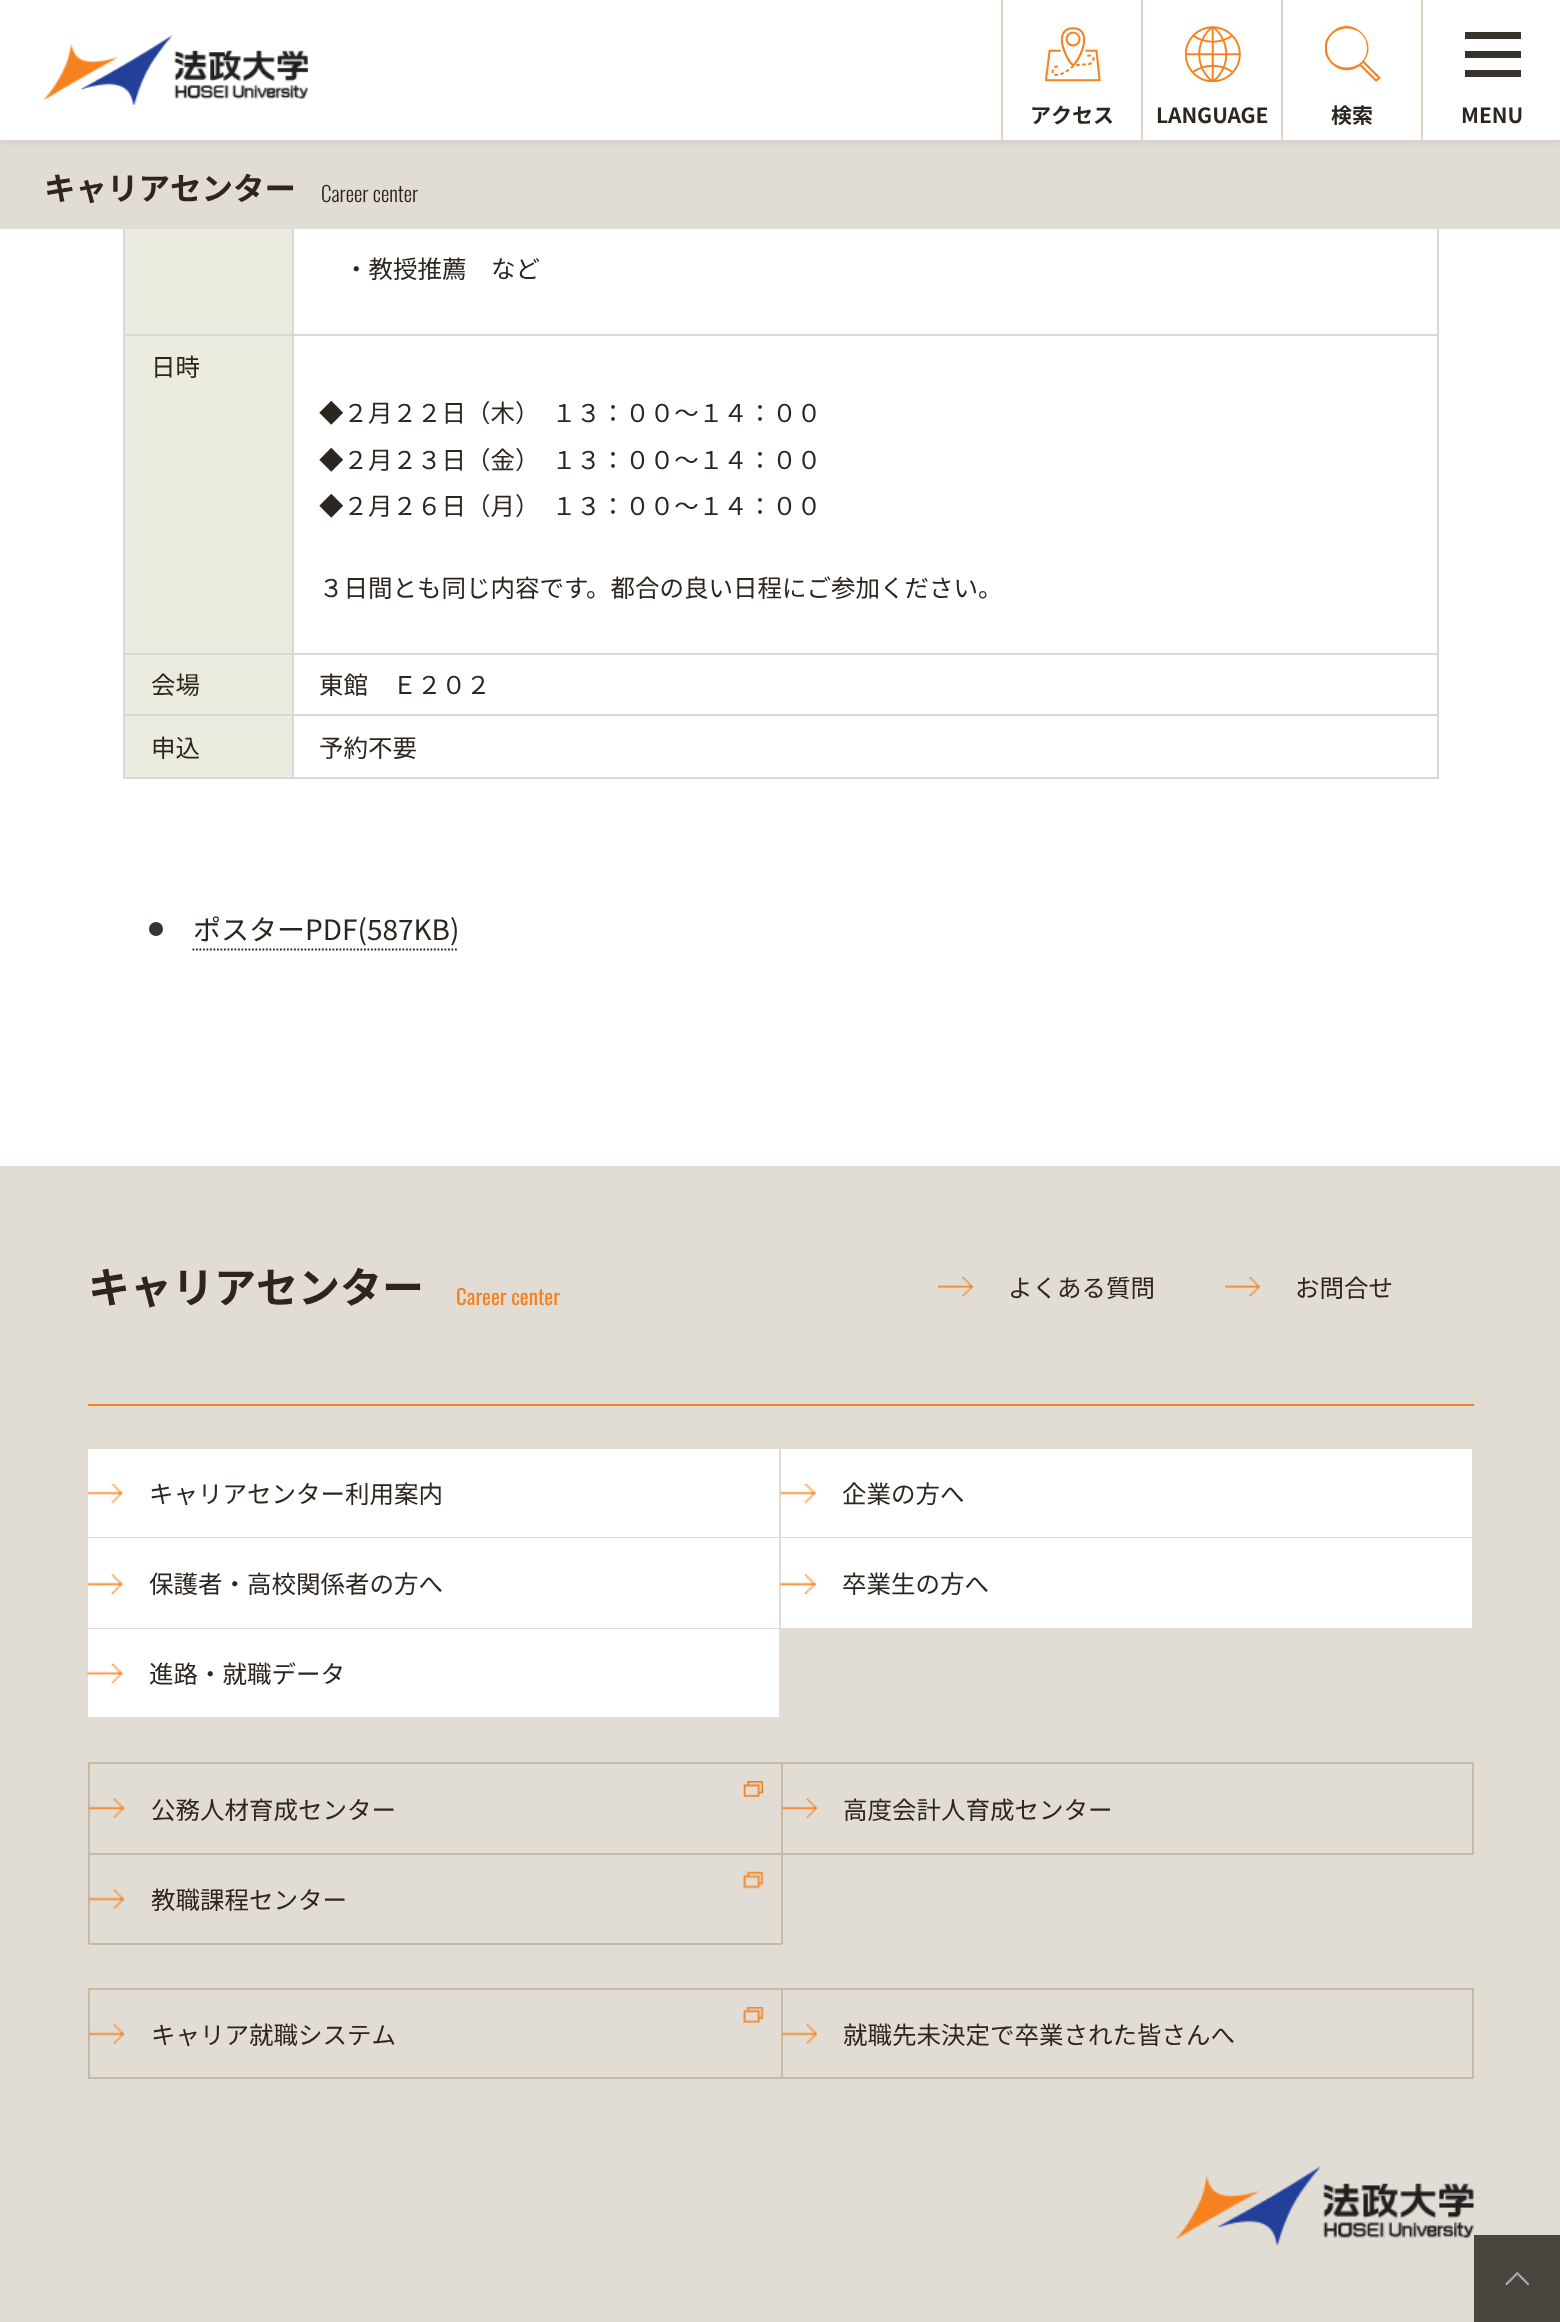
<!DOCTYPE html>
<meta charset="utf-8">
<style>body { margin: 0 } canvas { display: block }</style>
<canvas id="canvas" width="1560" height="2322"></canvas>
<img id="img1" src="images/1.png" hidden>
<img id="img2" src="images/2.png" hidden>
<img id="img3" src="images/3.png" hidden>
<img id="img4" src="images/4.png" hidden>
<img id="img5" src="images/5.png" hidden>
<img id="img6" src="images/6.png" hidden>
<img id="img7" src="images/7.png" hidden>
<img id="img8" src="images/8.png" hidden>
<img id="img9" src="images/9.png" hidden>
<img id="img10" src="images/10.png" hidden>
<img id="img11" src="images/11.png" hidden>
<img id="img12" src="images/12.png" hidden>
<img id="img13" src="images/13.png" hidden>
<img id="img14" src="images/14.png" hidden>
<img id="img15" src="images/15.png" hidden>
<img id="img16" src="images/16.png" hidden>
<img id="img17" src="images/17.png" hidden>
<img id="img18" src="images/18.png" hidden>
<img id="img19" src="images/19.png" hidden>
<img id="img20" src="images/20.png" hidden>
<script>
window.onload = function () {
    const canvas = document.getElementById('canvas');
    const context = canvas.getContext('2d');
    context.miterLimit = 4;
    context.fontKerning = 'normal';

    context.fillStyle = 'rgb(255, 255, 255)';
    context.fillRect(0, 0, 1560, 2322);
    context.fillStyle = 'rgb(225, 221, 213)';
    context.fillRect(0, 140, 1560, 89);
    context.fillStyle = 'rgba(0, 0, 0, 0.1)';
    context.filter = 'blur(4.5px)';
    context.beginPath();
    context.rect(0, 0, 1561, 140);
    context.fill();
    context.filter = 'none';
    context.fillStyle = 'rgb(255, 255, 255)';
    context.fillRect(0, 0, 1560, 140);
    context.drawImage(document.getElementById('img1'), 43, 35, 265, 70);
    context.fillStyle = 'rgb(222, 211, 197)';
    context.fillRect(1001, 0, 2, 140);
    context.drawImage(document.getElementById('img2'), 1045, 27, 56, 55);
    context.fillRect(1141, 0, 2, 140);
    context.drawImage(document.getElementById('img3'), 1185, 26, 56, 56);
    context.fillRect(1281, 0, 2, 140);
    context.save();
    context.beginPath();
    context.rect(1325, 26, 56, 56);
    context.clip();
    context.fillStyle = 'rgb(245, 130, 31)';
    context.beginPath();
    context.moveTo(1381, 78);
    context.lineTo(1364, 61);
    context.bezierCurveTo(1380, 40, 1350, 13, 1331, 33);
    context.bezierCurveTo(1312, 52, 1338, 81, 1360, 66);
    context.lineTo(1376, 82);
    context.closePath();
    context.moveTo(1327, 48);
    context.bezierCurveTo(1327, 22, 1367, 22, 1367, 48);
    context.bezierCurveTo(1367, 74, 1327, 74, 1327, 48);
    context.closePath();
    context.moveTo(1362, 64);
    context.lineTo(1363, 63);
    context.lineTo(1378, 78);
    context.lineTo(1376, 79);
    context.lineTo(1361, 64);
    context.closePath();
    context.fill();
    context.restore();
    context.fillRect(1421, 0, 2, 140);
    context.fillStyle = 'rgb(56, 51, 44)';
    context.fillRect(1465, 32, 56, 7);
    context.fillRect(1465, 51, 56, 7);
    context.fillRect(1465, 70, 56, 7);
    context.fillStyle = 'rgb(216, 216, 216)';
    context.fillRect(1437, 229, 2, 485);
    context.fillRect(123, 229, 2, 550);
    context.fillStyle = 'rgb(235, 235, 223)';
    context.fillRect(125, 229, 167, 105);
    context.fillStyle = 'rgb(216, 216, 216)';
    context.fillRect(292, 334, 1147, 2);
    context.fillRect(292, 653, 1147, 2);
    context.fillRect(292, 714, 1147, 2);
    context.fillRect(1437, 714, 2, 65);
    context.fillRect(292, 777, 1147, 2);
    context.fillRect(292, 714, 2, 65);
    context.fillRect(123, 714, 171, 2);
    context.fillRect(292, 653, 2, 63);
    context.fillRect(123, 653, 171, 2);
    context.fillRect(292, 334, 2, 321);
    context.fillRect(123, 334, 171, 2);
    context.fillRect(292, 229, 2, 107);
    context.fillStyle = 'rgb(235, 235, 223)';
    context.fillRect(125, 336, 167, 317);
    context.fillRect(125, 655, 167, 59);
    context.fillRect(125, 716, 167, 61);
    context.fillStyle = 'rgb(216, 216, 216)';
    context.fillRect(123, 777, 171, 2);
    context.fillStyle = 'rgb(56, 51, 44)';
    context.beginPath();
    context.arc(156, 929, 7, 0, 2 * Math.PI);
    context.fill();
    context.beginPath();
    context.moveTo(192.5, 949.5);
    context.lineTo(458.5, 949.5);
    context.strokeStyle = 'rgb(44, 38, 31)';
    context.lineWidth = 1.8;
    context.setLineDash([1.75, 1.75]);
    context.stroke();
    context.fillStyle = 'rgb(225, 221, 213)';
    context.fillRect(0, 1166, 1560, 1156);
    context.fillStyle = 'rgb(245, 130, 31)';
    context.fillRect(88, 1404, 1386, 2);
    context.drawImage(document.getElementById('img4'), 938, 1277, 35, 20);
    context.drawImage(document.getElementById('img5'), 1225, 1277, 35, 20);
    context.fillStyle = 'rgb(255, 255, 255)';
    context.fillRect(88, 1449, 691, 88);
    context.drawImage(document.getElementById('img6'), 88, 1484, 35, 20);
    context.fillRect(781, 1449, 691, 88);
    context.drawImage(document.getElementById('img7'), 780, 1484, 36, 20);
    context.fillRect(88, 1538, 691, 90);
    context.drawImage(document.getElementById('img8'), 88, 1573, 35, 21);
    context.fillRect(781, 1538, 691, 90);
    context.drawImage(document.getElementById('img9'), 780, 1573, 36, 21);
    context.fillRect(88, 1629, 691, 88);
    context.drawImage(document.getElementById('img10'), 87, 1663, 36, 21);
    context.fillStyle = 'rgb(199, 186, 165)';
    context.fillRect(88, 1762, 2, 182);
    context.fillRect(89, 1762, 693, 2);
    context.fillRect(781, 1762, 2, 182);
    context.fillRect(89, 1853, 693, 2);
    context.drawImage(document.getElementById('img11'), 743, 1781, 20, 16);
    context.drawImage(document.getElementById('img12'), 88, 1797, 37, 21);
    context.fillRect(782, 1762, 692, 2);
    context.fillRect(1472, 1762, 2, 93);
    context.fillRect(782, 1853, 692, 2);
    context.drawImage(document.getElementById('img13'), 782, 1798, 36, 20);
    context.fillRect(89, 1943, 693, 2);
    context.drawImage(document.getElementById('img14'), 743, 1871, 20, 18);
    context.drawImage(document.getElementById('img15'), 89, 1889, 36, 20);
    context.fillRect(88, 1988, 2, 91);
    context.fillRect(89, 1988, 693, 2);
    context.fillRect(781, 1988, 2, 91);
    context.fillRect(89, 2077, 693, 2);
    context.drawImage(document.getElementById('img16'), 743, 2007, 21, 16);
    context.drawImage(document.getElementById('img17'), 89, 2023, 36, 21);
    context.fillRect(782, 1988, 692, 2);
    context.fillRect(1472, 1988, 2, 91);
    context.fillRect(782, 2077, 692, 2);
    context.drawImage(document.getElementById('img18'), 782, 2023, 35, 21);
    context.drawImage(document.getElementById('img19'), 1176, 2166, 298, 79);
    context.fillStyle = 'rgb(73, 68, 61)';
    context.fillRect(1474, 2235, 86, 87);
    context.drawImage(document.getElementById('img20'), 1505, 2271, 24, 15);
    context.font = 'bold 21px Noto Sans JP';
    context.fillStyle = 'rgb(44, 38, 31)';
    context.fillText('アクセス', 1030, 123);
    context.fillText('LANGUAGE', 1156, 123);
    context.fillText('検索', 1331, 123);
    context.fillText('MENU', 1461, 123);
    context.font = 'bold 31.5px Noto Sans JP';
    context.fillText('キャリアセンター', 44, 200);
    context.font = '300 21px Oswald';
    context.fillText('Career center', 321, 202);
    context.font = '24.5px Noto Sans JP';
    context.fillText('・教授推薦　など', 344, 278);
    context.fillText('日時', 151, 376);
    context.fillText('◆２月２２日（木）　１３：００～１４：００', 319, 422);
    context.fillText('◆２月２３日（金）　１３：００～１４：００', 319, 469);
    context.fillText('◆２月２６日（月）　１３：００～１４：００', 319, 515);
    context.fillText('３日間とも同じ内容です。都合の良い日程にご参加ください。', 319, 597);
    context.fillText('会場', 151, 694);
    context.fillText('東館　Ｅ２０２', 319, 694);
    context.fillText('申込', 151, 757);
    context.fillText('予約不要', 319, 757);
    context.font = '28px Noto Sans JP';
    context.fillText('ポスターPDF(587KB)', 193, 940);
    context.font = 'bold 42px Noto Sans JP';
    context.fillText('キャリアセンター', 88, 1303);
    context.font = '21px Oswald';
    context.fillStyle = 'rgb(245, 130, 31)';
    context.fillText('Career center', 456, 1305);
    context.font = '24.5px Noto Sans JP';
    context.fillStyle = 'rgb(44, 38, 31)';
    context.fillText('よくある質問', 1008, 1297);
    context.fillText('お問合せ', 1295, 1297);
    context.fillText('キャリアセンター利用案内', 149, 1503);
    context.fillText('企業の方へ', 842, 1503);
    context.fillText('保護者・高校関係者の方へ', 149, 1593);
    context.fillText('卒業生の方へ', 842, 1593);
    context.fillText('進路・就職データ', 149, 1683);
    context.fillText('公務人材育成センター', 151, 1819);
    context.fillText('高度会計人育成センター', 843, 1819);
    context.fillText('教職課程センター', 151, 1909);
    context.fillText('キャリア就職システム', 151, 2044);
    context.fillText('就職先未決定で卒業された皆さんへ', 843, 2044);
};
</script>
